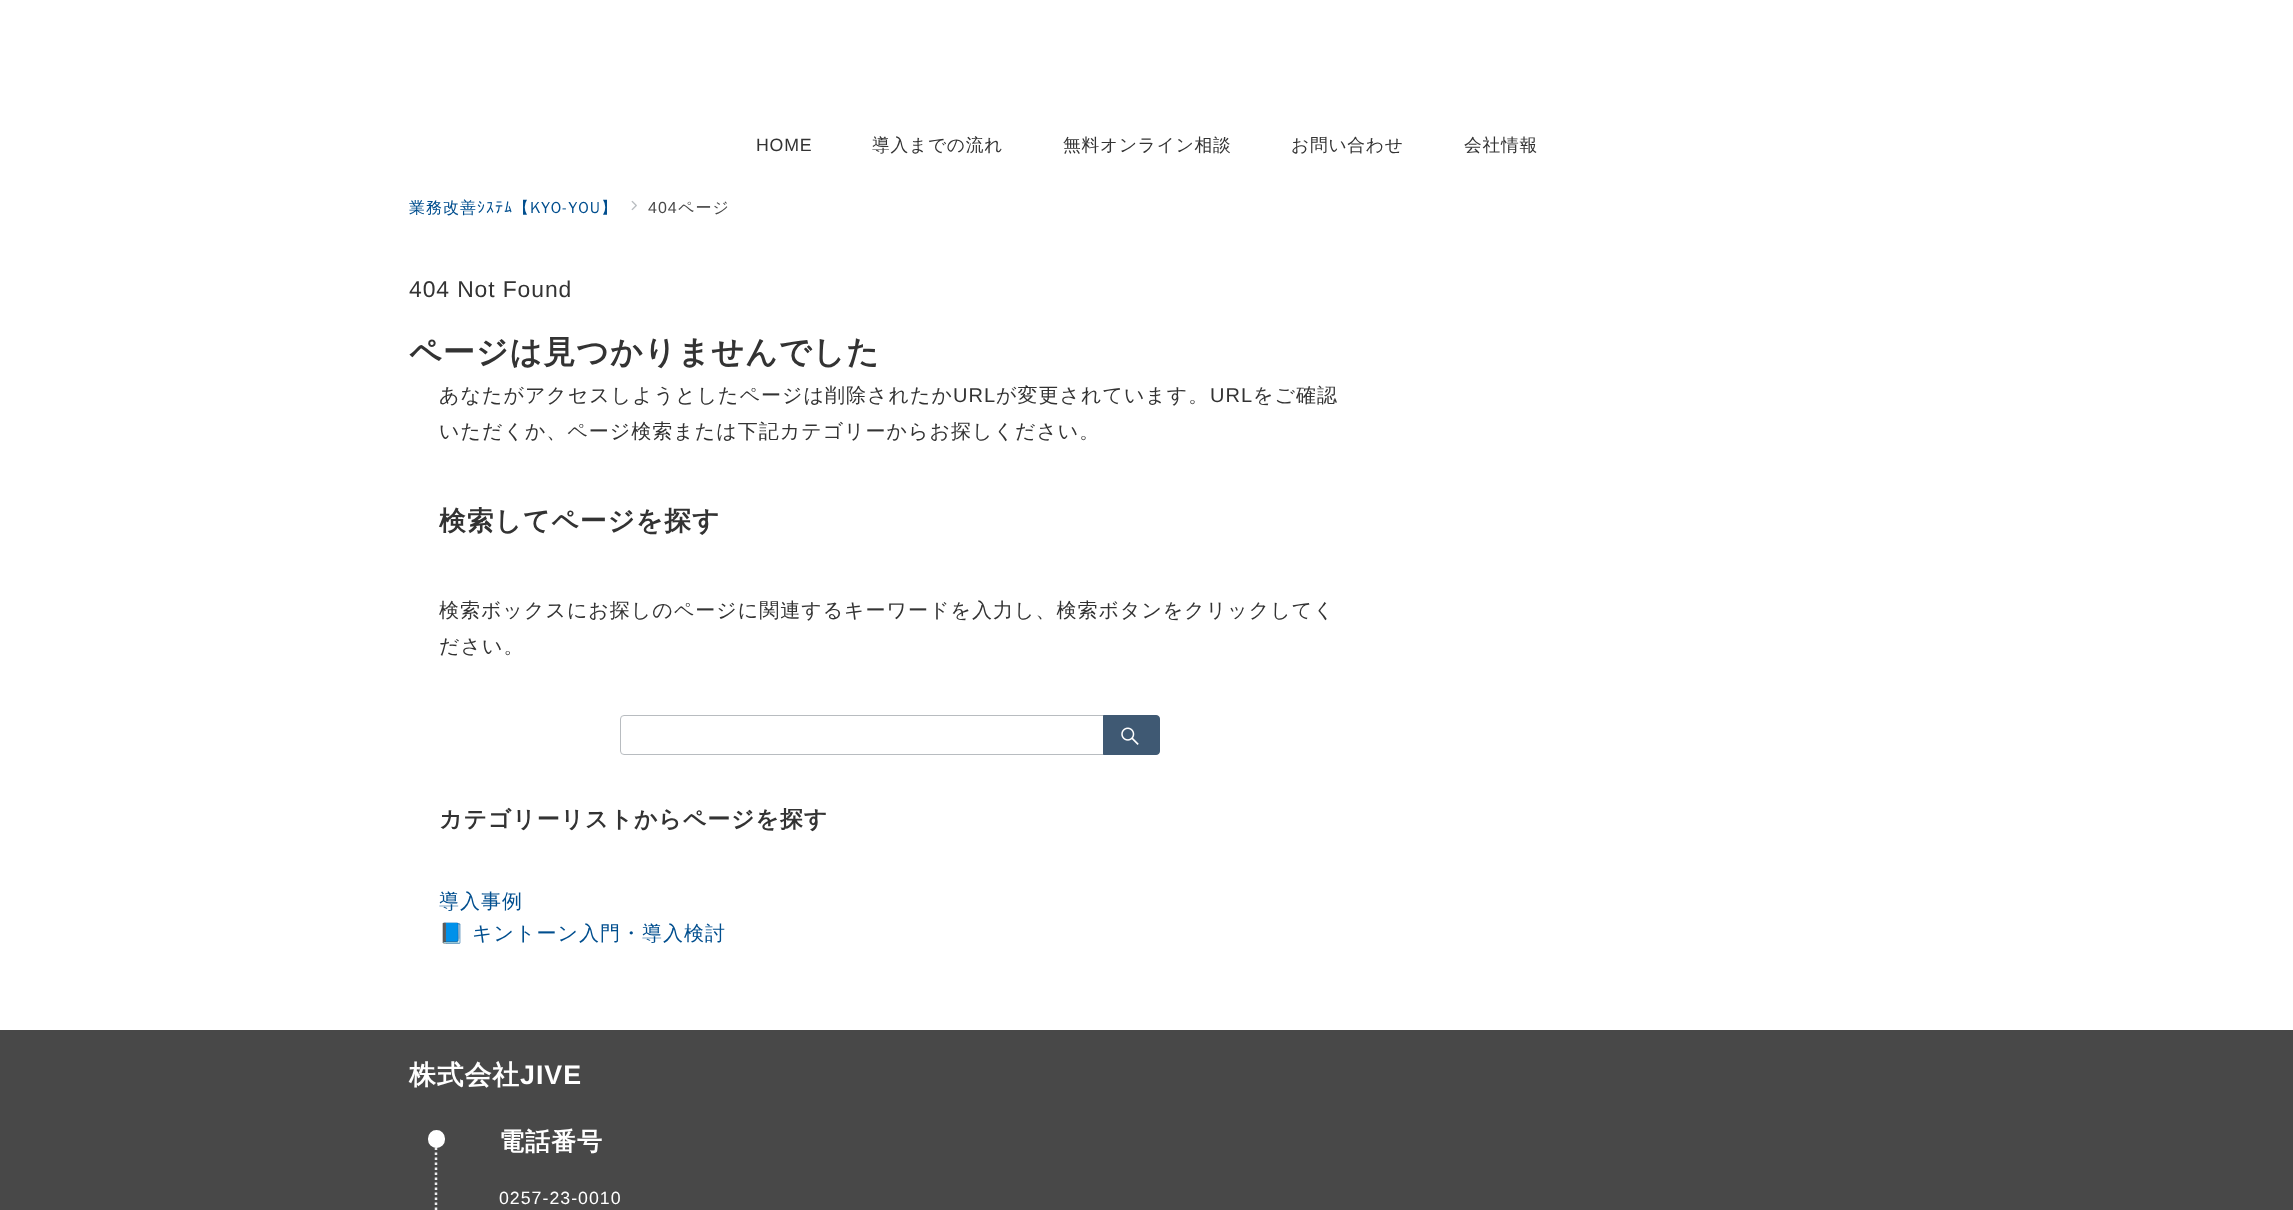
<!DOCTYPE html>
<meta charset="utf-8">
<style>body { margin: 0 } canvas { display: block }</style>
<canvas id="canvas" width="2293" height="1210"></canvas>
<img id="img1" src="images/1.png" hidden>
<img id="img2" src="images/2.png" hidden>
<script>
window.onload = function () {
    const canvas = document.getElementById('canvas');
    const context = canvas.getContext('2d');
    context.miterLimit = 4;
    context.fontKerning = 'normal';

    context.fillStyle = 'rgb(255, 255, 255)';
    context.fillRect(0, 0, 2293, 1210);
    context.drawImage(document.getElementById('img1'), 631, 200, 6, 11);
    context.beginPath();
    context.roundRect(620.5, 715.5, 539, 39, 3.5);
    context.strokeStyle = 'rgb(184, 188, 192)';
    context.stroke();
    context.fillStyle = 'rgb(63, 89, 115)';
    context.beginPath();
    context.roundRect(1103.5, 715.5, 56, 39, [0, 3.5, 3.5, 0]);
    context.fill();
    context.strokeStyle = 'rgb(63, 89, 115)';
    context.stroke();
    context.drawImage(document.getElementById('img2'), 1121, 727, 18, 18);
    context.fillStyle = 'rgb(72, 72, 72)';
    context.fillRect(0, 1030, 2293, 180);
    context.beginPath();
    context.moveTo(436, 1147.5);
    context.lineTo(436, 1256);
    context.strokeStyle = 'rgb(238, 239, 240)';
    context.lineWidth = 2.5;
    context.setLineDash([2.5, 2.5]);
    context.stroke();
    context.fillStyle = 'rgb(255, 255, 255)';
    context.beginPath();
    context.roundRect(430, 1132, 13, 14, 6.5);
    context.fill();
    context.strokeStyle = 'rgb(255, 255, 255)';
    context.lineWidth = 4;
    context.setLineDash([]);
    context.stroke();
    context.letterSpacing = '0.75px';
    context.font = '17.75px Liberation Sans';
    context.fillStyle = 'rgb(51, 51, 51)';
    context.fillText('HOME', 756, 151);
    context.font = '500 17.75px WenQuanYi Zen Hei';
    context.fillText('導入までの流れ', 872, 151);
    context.fillText('無料オンライン相談', 1063, 151);
    context.fillText('お問い合わせ', 1291, 151);
    context.fillText('会社情報', 1464, 151);
    context.letterSpacing = '1px';
    context.font = '500 16px WenQuanYi Zen Hei';
    context.fillStyle = 'rgb(0, 78, 142)';
    context.fillText('業務改善', 409, 213);
    context.font = '16px IPAPGothic';
    context.fillText('ｼｽﾃﾑ', 477, 213);
    context.font = '500 16px WenQuanYi Zen Hei';
    context.fillText('【KYO-YOU】', 513, 213);
    context.font = '16px Liberation Sans';
    context.fillStyle = 'rgb(72, 72, 72)';
    context.fillText('404', 648, 213);
    context.font = '500 16px WenQuanYi Zen Hei';
    context.fillText('ページ', 678, 213);
    context.letterSpacing = '0.9px';
    context.font = '22.9px Liberation Sans';
    context.fillStyle = 'rgb(51, 51, 51)';
    context.fillText('404 Not Found', 409, 297);
    context.letterSpacing = '1px';
    context.font = 'bold 32px WenQuanYi Zen Hei';
    context.fillText('ページは見つかりませんでした', 409, 363);
    context.font = '500 20px WenQuanYi Zen Hei';
    context.fillText('あなたがアクセスしようとしたページは削除されたか', 439, 402);
    context.font = '20px Liberation Sans';
    context.fillText('URL', 953, 402);
    context.font = '500 20px WenQuanYi Zen Hei';
    context.fillText('が変更されています。', 996, 402);
    context.font = '20px Liberation Sans';
    context.fillText('URL', 1210, 402);
    context.font = '500 20px WenQuanYi Zen Hei';
    context.fillText('をご確認', 1253, 402);
    context.fillText('いただくか、ページ検索または下記カテゴリーからお探しください。', 439, 438);
    context.font = 'bold 26.75px WenQuanYi Zen Hei';
    context.fillText('検索してページを探す', 439, 530);
    context.font = '500 20px WenQuanYi Zen Hei';
    context.fillText('検索ボックスにお探しのページに関連するキーワードを入力し、検索ボタンをクリックしてく', 439, 617);
    context.fillText('ださい。', 439, 653);
    context.font = 'bold 22.9px WenQuanYi Zen Hei';
    context.fillText('カテゴリーリストからページを探す', 439, 827);
    context.font = '500 20px WenQuanYi Zen Hei';
    context.fillStyle = 'rgb(0, 78, 142)';
    context.fillText('導入事例', 439, 908);
    context.font = '20px Noto Color Emoji';
    context.fillText('📘', 439, 940);
    context.font = '500 20px WenQuanYi Zen Hei';
    context.fillText('キントーン入門・導入検討', 472, 940);
    context.font = 'bold 26.75px WenQuanYi Zen Hei';
    context.fillStyle = 'rgb(255, 255, 255)';
    context.fillText('株式会社', 409, 1084);
    context.font = 'bold 26.75px Liberation Sans';
    context.fillText('JIVE', 520, 1084);
    context.font = 'bold 25px WenQuanYi Zen Hei';
    context.fillText('電話番号', 499, 1150);
    context.font = '17.75px Liberation Sans';
    context.fillText('0257-23-0010', 499, 1204);
};
</script>
